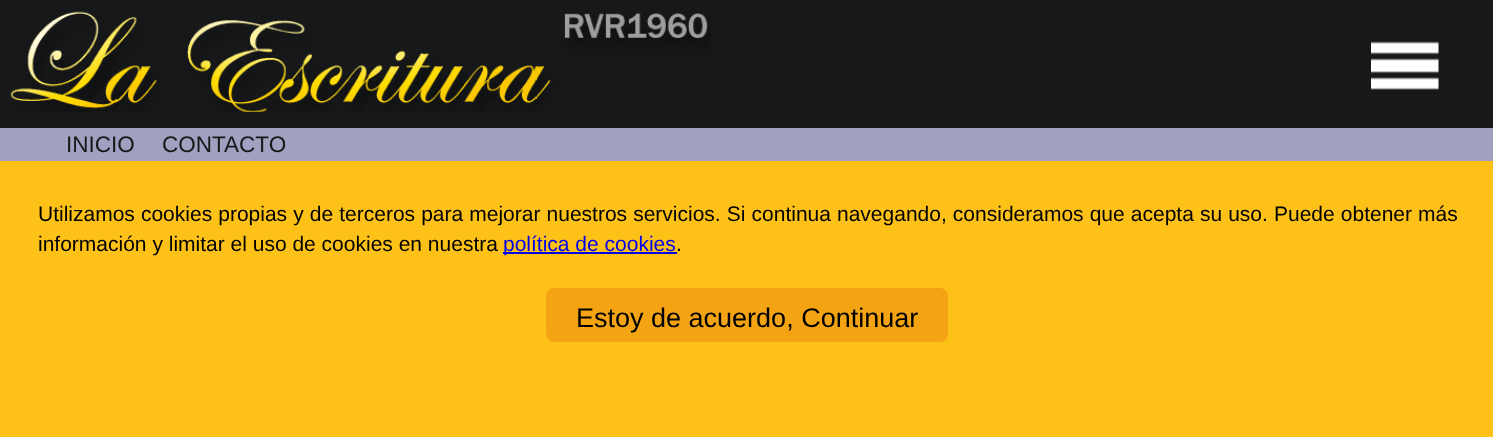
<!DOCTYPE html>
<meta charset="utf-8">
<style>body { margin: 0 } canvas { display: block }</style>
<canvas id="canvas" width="1493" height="437"></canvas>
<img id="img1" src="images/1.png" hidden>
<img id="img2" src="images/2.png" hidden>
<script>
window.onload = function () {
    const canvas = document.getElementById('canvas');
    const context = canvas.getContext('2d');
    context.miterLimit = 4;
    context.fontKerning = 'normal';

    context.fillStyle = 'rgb(162, 160, 192)';
    context.fillRect(0, 0, 1493, 437);
    context.fillStyle = 'rgb(22, 24, 25)';
    context.fillRect(0, 0, 1493, 128);
    context.drawImage(document.getElementById('img1'), 10, 11, 701, 101);
    context.drawImage(document.getElementById('img2'), 1371, 41, 68, 49);
    context.fillStyle = 'rgb(254, 193, 24)';
    context.fillRect(0, 161, 1493, 276);
    context.fillStyle = 'rgb(0, 0, 238)';
    context.fillRect(503, 252, 174, 2);
    context.fillStyle = 'rgb(244, 164, 18)';
    context.beginPath();
    context.roundRect(546, 288, 402, 54, 8);
    context.fill();
    context.font = '22.5px Liberation Sans';
    context.fillStyle = 'rgb(22, 24, 25)';
    context.fillText('INICIO', 66, 152);
    context.fillText('CONTACTO', 162, 152);
    context.wordSpacing = '0.25px';
    context.font = '21px Liberation Sans';
    context.fillStyle = 'rgb(0, 0, 0)';
    context.fillText('Utilizamos cookies propias y de terceros para mejorar nuestros servicios. Si continua navegando, consideramos que acepta su uso. Puede obtener más', 38, 221);
    context.wordSpacing = '0px';
    context.fillText('información y limitar el uso de cookies en nuestra', 38, 251);
    context.fillStyle = 'rgb(0, 0, 238)';
    context.fillText('política de cookies', 503, 251);
    context.fillStyle = 'rgb(0, 0, 0)';
    context.fillText('.', 676, 251);
    context.font = '27px Liberation Sans';
    context.fillText('Estoy de acuerdo, Continuar', 576, 327);
};
</script>
